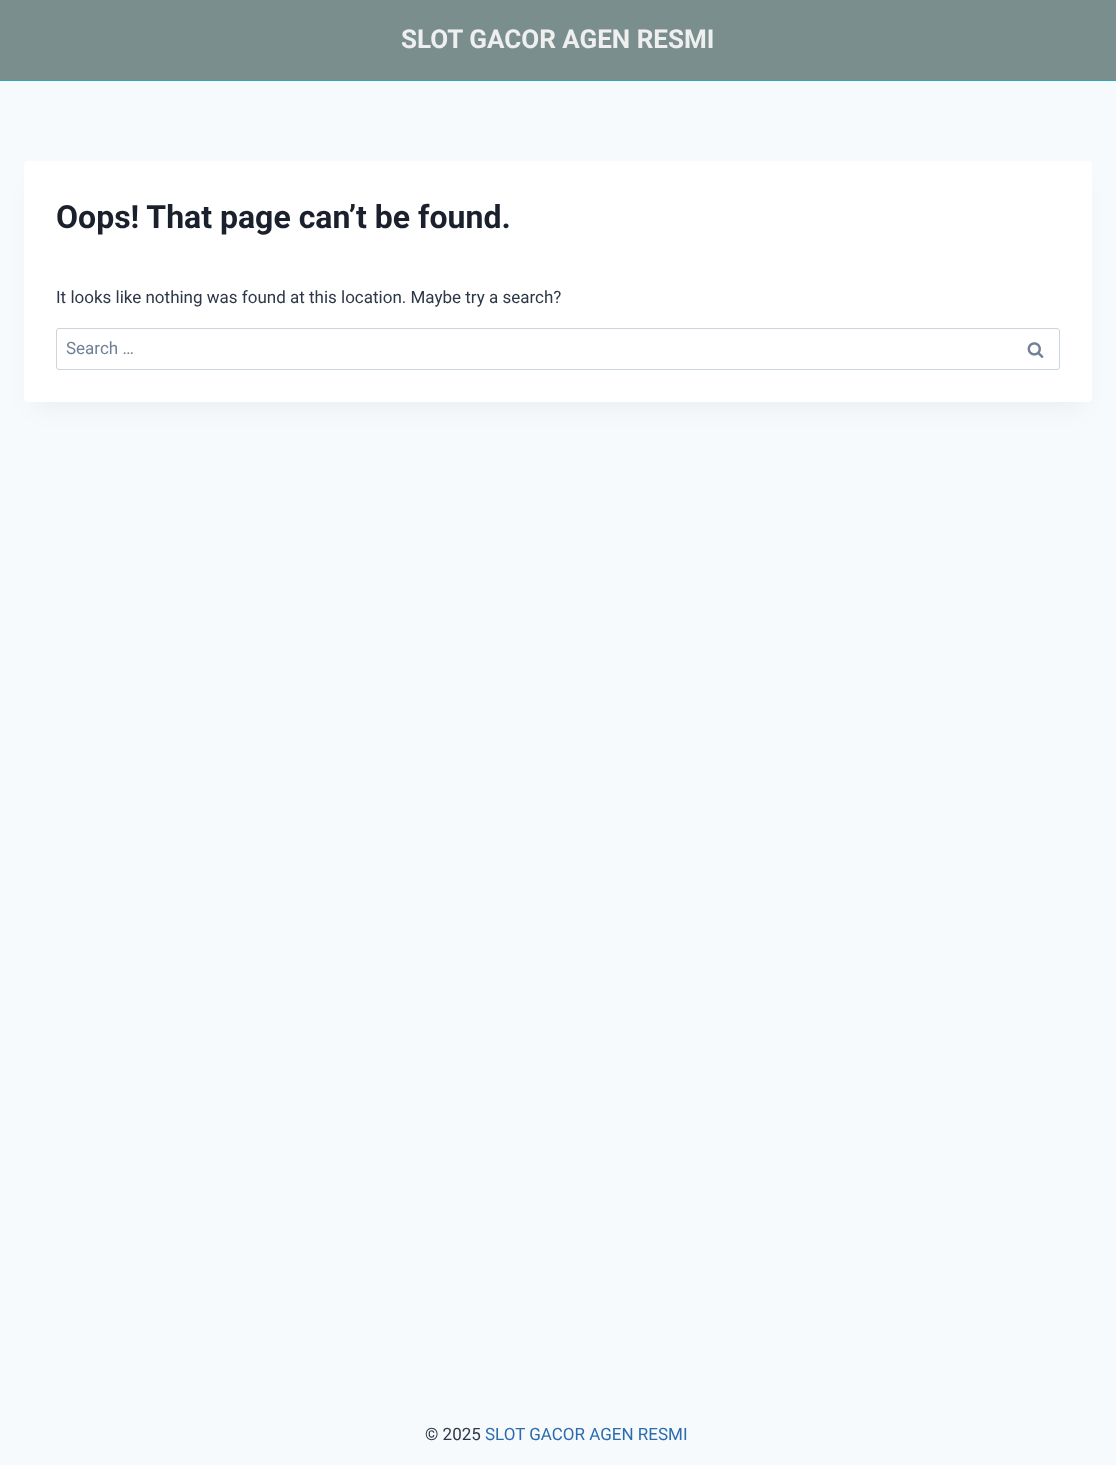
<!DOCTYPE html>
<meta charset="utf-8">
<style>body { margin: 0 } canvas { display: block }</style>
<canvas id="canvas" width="1116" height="1465"></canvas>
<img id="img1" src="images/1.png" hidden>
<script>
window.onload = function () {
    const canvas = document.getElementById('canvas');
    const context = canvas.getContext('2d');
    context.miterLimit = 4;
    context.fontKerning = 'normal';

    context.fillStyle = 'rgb(247, 250, 252)';
    context.fillRect(0, 0, 1116, 1465);
    context.fillStyle = 'rgb(121, 142, 141)';
    context.fillRect(0, 0, 1116, 80);
    context.fillStyle = 'rgb(41, 169, 178)';
    context.fillRect(0, 80, 1116, 1);
    context.fillStyle = 'rgba(0, 0, 0, 0.05)';
    context.filter = 'blur(12.5px)';
    context.beginPath();
    context.rect(34, 186, 1048, 221);
    context.fill();
    context.filter = 'none';
    context.fillStyle = 'rgb(255, 255, 255)';
    context.beginPath();
    context.roundRect(24, 161, 1068, 241, 4);
    context.fill();
    context.beginPath();
    context.roundRect(56.5, 328.5, 1003, 41, 2.5);
    context.strokeStyle = 'rgb(203, 213, 224)';
    context.stroke();
    context.drawImage(document.getElementById('img1'), 1027, 342, 17, 16);
    context.font = 'bold 26px Roboto';
    context.fillStyle = 'rgb(239, 239, 239)';
    context.fillText('SLOT GACOR AGEN RESMI', 401, 48);
    context.font = 'bold 32px Roboto';
    context.fillStyle = 'rgb(26, 32, 44)';
    context.fillText('Oops! That page can’t be found.', 56, 228);
    context.font = '17px Roboto';
    context.fillStyle = 'rgb(45, 55, 72)';
    context.fillText('It looks like nothing was found at this location. Maybe try a search?', 56, 303);
    context.fillStyle = 'rgb(113, 128, 150)';
    context.fillText('Search …', 66, 354);
    context.fillStyle = 'rgb(45, 55, 72)';
    context.fillText('© 2025', 425, 1440);
    context.fillStyle = 'rgb(43, 108, 176)';
    context.fillText('SLOT GACOR AGEN RESMI', 485, 1440);
};
</script>
